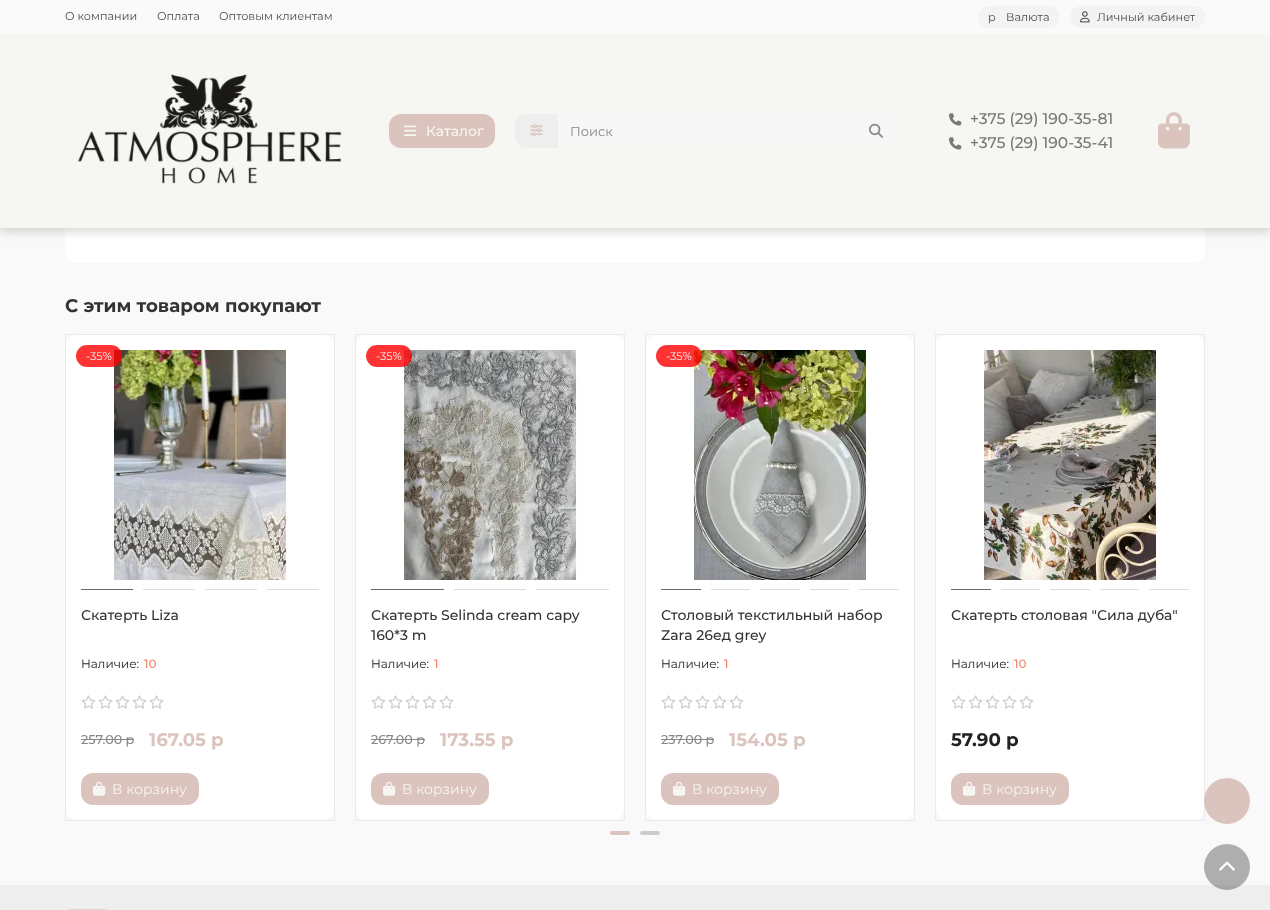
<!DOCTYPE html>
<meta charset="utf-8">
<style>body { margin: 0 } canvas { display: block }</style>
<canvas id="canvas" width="1270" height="910"></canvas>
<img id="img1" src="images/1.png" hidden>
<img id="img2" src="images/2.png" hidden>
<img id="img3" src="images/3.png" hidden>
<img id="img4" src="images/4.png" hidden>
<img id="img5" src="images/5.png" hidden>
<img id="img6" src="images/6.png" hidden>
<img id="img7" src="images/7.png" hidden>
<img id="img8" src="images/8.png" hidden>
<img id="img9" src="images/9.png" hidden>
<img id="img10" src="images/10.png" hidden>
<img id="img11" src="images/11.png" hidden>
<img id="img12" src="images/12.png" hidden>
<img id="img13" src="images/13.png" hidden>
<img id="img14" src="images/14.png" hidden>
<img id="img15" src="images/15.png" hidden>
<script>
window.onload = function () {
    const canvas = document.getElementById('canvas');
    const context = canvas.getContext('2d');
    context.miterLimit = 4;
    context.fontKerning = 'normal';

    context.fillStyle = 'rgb(249, 249, 249)';
    context.fillRect(0, 0, 1270, 910);
    context.fillStyle = 'rgb(255, 255, 255)';
    context.beginPath();
    context.roundRect(65, -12, 1140, 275, 12);
    context.fill();
    context.fillStyle = 'rgba(0, 0, 0, 0.15)';
    context.filter = 'blur(5px)';
    context.beginPath();
    context.rect(0, 4, 1270, 228);
    context.fill();
    context.filter = 'none';
    context.fillStyle = 'rgb(246, 246, 242)';
    context.fillRect(0, 34, 1270, 194);
    context.fillStyle = 'rgb(250, 250, 250)';
    context.fillRect(0, 0, 1270, 34);
    context.fillStyle = 'rgb(243, 243, 243)';
    context.beginPath();
    context.roundRect(978, 6, 82, 22, 11);
    context.fill();
    context.beginPath();
    context.roundRect(1070, 6, 135, 22, 11);
    context.fill();
    context.drawImage(document.getElementById('img1'), 1080, 11, 10, 12);
    context.drawImage(document.getElementById('img2'), 77, 74, 265, 110);
    context.fillStyle = 'rgb(219, 196, 190)';
    context.beginPath();
    context.roundRect(389, 114, 106, 34, 12);
    context.fill();
    context.drawImage(document.getElementById('img3'), 404, 125, 13, 11);
    context.fillStyle = 'rgb(238, 238, 238)';
    context.beginPath();
    context.roundRect(515, 114, 43, 34, [12, 0, 0, 12]);
    context.fill();
    context.drawImage(document.getElementById('img4'), 530, 124, 13, 13);
    context.fillStyle = 'rgb(247, 247, 247)';
    context.beginPath();
    context.roundRect(558, 114, 339, 34, [0, 12, 12, 0]);
    context.fill();
    context.drawImage(document.getElementById('img5'), 869, 123, 14, 15);
    context.drawImage(document.getElementById('img6'), 949, 113, 13, 13);
    context.drawImage(document.getElementById('img6'), 949, 137, 13, 13);
    context.drawImage(document.getElementById('img7'), 1158, 112, 32, 37);
    context.fillStyle = 'rgb(255, 255, 255)';
    context.beginPath();
    context.roundRect(66, 335, 268, 485, 11);
    context.fill();
    context.strokeStyle = 'rgba(0, 0, 0, 0.06)';
    context.strokeRect(65.5, 334.5, 269, 486);
    context.drawImage(document.getElementById('img8'), 113, 350, 175, 230);
    context.fillStyle = 'rgb(105, 105, 105)';
    context.fillRect(81, 589, 52, 1);
    context.fillStyle = 'rgb(221, 221, 221)';
    context.fillRect(143, 589, 52, 1);
    context.fillRect(205, 589, 52, 1);
    context.fillRect(267, 589, 52, 1);
    context.fillStyle = 'rgba(255, 0, 0, 0.8)';
    context.beginPath();
    context.roundRect(76, 345, 46, 22, 11);
    context.fill();
    context.drawImage(document.getElementById('img9'), 81, 695, 15, 14);
    context.drawImage(document.getElementById('img9'), 98, 695, 15, 14);
    context.drawImage(document.getElementById('img9'), 115, 695, 15, 14);
    context.drawImage(document.getElementById('img9'), 132, 695, 15, 14);
    context.drawImage(document.getElementById('img9'), 149, 695, 15, 14);
    context.fillStyle = 'rgb(136, 136, 136)';
    context.fillRect(81, 739, 53, 1);
    context.fillStyle = 'rgb(219, 196, 190)';
    context.beginPath();
    context.roundRect(81, 773, 118, 32, 12);
    context.fill();
    context.drawImage(document.getElementById('img10'), 93, 781, 13, 15);
    context.fillStyle = 'rgb(255, 255, 255)';
    context.beginPath();
    context.roundRect(356, 335, 268, 485, 11);
    context.fill();
    context.strokeRect(355.5, 334.5, 269, 486);
    context.drawImage(document.getElementById('img11'), 404, 350, 176, 230);
    context.fillStyle = 'rgb(105, 105, 105)';
    context.fillRect(371, 589, 73, 1);
    context.fillStyle = 'rgb(221, 221, 221)';
    context.fillRect(454, 589, 72, 1);
    context.fillRect(536, 589, 73, 1);
    context.fillStyle = 'rgba(255, 0, 0, 0.8)';
    context.beginPath();
    context.roundRect(366, 345, 46, 22, 11);
    context.fill();
    context.drawImage(document.getElementById('img9'), 371, 695, 15, 14);
    context.drawImage(document.getElementById('img9'), 388, 695, 15, 14);
    context.drawImage(document.getElementById('img9'), 405, 695, 15, 14);
    context.drawImage(document.getElementById('img9'), 422, 695, 15, 14);
    context.drawImage(document.getElementById('img9'), 439, 695, 15, 14);
    context.fillStyle = 'rgb(136, 136, 136)';
    context.fillRect(371, 739, 54, 1);
    context.fillStyle = 'rgb(219, 196, 190)';
    context.beginPath();
    context.roundRect(371, 773, 118, 32, 12);
    context.fill();
    context.drawImage(document.getElementById('img10'), 383, 781, 13, 15);
    context.fillStyle = 'rgb(255, 255, 255)';
    context.beginPath();
    context.roundRect(646, 335, 268, 485, 11);
    context.fill();
    context.strokeRect(645.5, 334.5, 269, 486);
    context.drawImage(document.getElementById('img12'), 693, 350, 177, 230);
    context.fillStyle = 'rgb(105, 105, 105)';
    context.fillRect(661, 589, 40, 1);
    context.fillStyle = 'rgb(221, 221, 221)';
    context.fillRect(711, 589, 39, 1);
    context.fillRect(760, 589, 40, 1);
    context.fillRect(810, 589, 39, 1);
    context.fillRect(859, 589, 40, 1);
    context.fillStyle = 'rgba(255, 0, 0, 0.8)';
    context.beginPath();
    context.roundRect(656, 345, 46, 22, 11);
    context.fill();
    context.drawImage(document.getElementById('img9'), 661, 695, 15, 14);
    context.drawImage(document.getElementById('img9'), 678, 695, 15, 14);
    context.drawImage(document.getElementById('img9'), 695, 695, 15, 14);
    context.drawImage(document.getElementById('img9'), 712, 695, 15, 14);
    context.drawImage(document.getElementById('img9'), 729, 695, 15, 14);
    context.fillStyle = 'rgb(136, 136, 136)';
    context.fillRect(661, 739, 53, 1);
    context.fillStyle = 'rgb(219, 196, 190)';
    context.beginPath();
    context.roundRect(661, 773, 118, 32, 12);
    context.fill();
    context.drawImage(document.getElementById('img10'), 673, 781, 13, 15);
    context.fillStyle = 'rgb(255, 255, 255)';
    context.beginPath();
    context.roundRect(936, 335, 268, 485, 11);
    context.fill();
    context.strokeRect(935.5, 334.5, 269, 486);
    context.drawImage(document.getElementById('img13'), 983, 350, 177, 230);
    context.fillStyle = 'rgb(105, 105, 105)';
    context.fillRect(951, 589, 40, 1);
    context.fillStyle = 'rgb(221, 221, 221)';
    context.fillRect(1001, 589, 39, 1);
    context.fillRect(1050, 589, 40, 1);
    context.fillRect(1100, 589, 39, 1);
    context.fillRect(1149, 589, 40, 1);
    context.drawImage(document.getElementById('img9'), 951, 695, 15, 14);
    context.drawImage(document.getElementById('img9'), 968, 695, 15, 14);
    context.drawImage(document.getElementById('img9'), 985, 695, 15, 14);
    context.drawImage(document.getElementById('img9'), 1002, 695, 15, 14);
    context.drawImage(document.getElementById('img9'), 1019, 695, 15, 14);
    context.fillStyle = 'rgb(219, 196, 190)';
    context.beginPath();
    context.roundRect(951, 773, 118, 32, 12);
    context.fill();
    context.drawImage(document.getElementById('img10'), 963, 781, 13, 15);
    context.beginPath();
    context.roundRect(610, 831, 20, 4, 2);
    context.fill();
    context.fillStyle = 'rgb(204, 204, 204)';
    context.beginPath();
    context.roundRect(640, 831, 20, 4, 2);
    context.fill();
    context.fillStyle = 'rgb(219, 196, 190)';
    context.beginPath();
    context.arc(1227, 801, 23, 0, 2 * Math.PI);
    context.fill();
    context.fillStyle = 'rgb(238, 238, 238)';
    context.fillRect(0, 885, 1270, 25);
    context.fillStyle = 'rgba(0, 0, 0, 0.3)';
    context.beginPath();
    context.arc(1227, 867, 23, 0, 2 * Math.PI);
    context.fill();
    context.drawImage(document.getElementById('img14'), 1219, 861, 16, 10);
    context.drawImage(document.getElementById('img15'), 68, 909, 39, 1);
    context.font = '11.25px Montserrat';
    context.fillStyle = 'rgb(76, 76, 76)';
    context.fillText('О компании', 65, 20);
    context.fillText('Оплата', 157, 20);
    context.fillText('Оптовым клиентам', 219, 20);
    context.fillText('р', 988, 21);
    context.fillText('Валюта', 1006, 21);
    context.fillText('Личный кабинет', 1097, 21);
    context.font = '500 14px Montserrat';
    context.fillStyle = 'rgb(246, 246, 242)';
    context.fillText('Каталог', 426, 136);
    context.font = '13px Montserrat';
    context.fillStyle = 'rgb(136, 136, 136)';
    context.fillText('Поиск', 570, 136);
    context.font = '500 15.5px Montserrat';
    context.fillStyle = 'rgb(119, 119, 119)';
    context.fillText('+375 (29) 190-35-81', 970, 124);
    context.fillText('+375 (29) 190-35-41', 970, 148);
    context.font = 'bold 18.25px Montserrat';
    context.fillStyle = 'rgb(51, 51, 51)';
    context.fillText('С этим товаром покупают', 65, 312);
    context.font = '11.25px Montserrat';
    context.fillStyle = 'rgb(246, 246, 242)';
    context.fillText('-35%', 86, 360);
    context.font = '500 14px Montserrat';
    context.fillStyle = 'rgb(51, 51, 51)';
    context.fillText('Скатерть Liza', 81, 620);
    context.font = '12px Montserrat';
    context.fillStyle = 'rgb(34, 34, 34)';
    context.fillText('Наличие:', 81, 668);
    context.font = '500 12px Montserrat';
    context.fillStyle = 'rgb(246, 132, 106)';
    context.fillText('10', 144, 668);
    context.font = '500 12.75px Montserrat';
    context.fillStyle = 'rgb(136, 136, 136)';
    context.fillText('257.00 р', 81, 744);
    context.font = 'bold 18.25px Montserrat';
    context.fillStyle = 'rgb(219, 196, 190)';
    context.fillText('167.05 р', 149, 746);
    context.font = '14px Montserrat';
    context.fillStyle = 'rgb(246, 246, 242)';
    context.fillText('В корзину', 112, 794);
    context.font = '11.25px Montserrat';
    context.fillText('-35%', 376, 360);
    context.font = '500 14px Montserrat';
    context.fillStyle = 'rgb(51, 51, 51)';
    context.fillText('Скатерть Selinda cream capy', 371, 620);
    context.fillText('160*3 m', 371, 640);
    context.font = '12px Montserrat';
    context.fillStyle = 'rgb(34, 34, 34)';
    context.fillText('Наличие:', 371, 668);
    context.font = '500 12px Montserrat';
    context.fillStyle = 'rgb(246, 132, 106)';
    context.fillText('1', 434, 668);
    context.font = '500 12.75px Montserrat';
    context.fillStyle = 'rgb(136, 136, 136)';
    context.fillText('267.00 р', 371, 744);
    context.font = 'bold 18.25px Montserrat';
    context.fillStyle = 'rgb(219, 196, 190)';
    context.fillText('173.55 р', 440, 746);
    context.font = '14px Montserrat';
    context.fillStyle = 'rgb(246, 246, 242)';
    context.fillText('В корзину', 402, 794);
    context.font = '11.25px Montserrat';
    context.fillText('-35%', 666, 360);
    context.font = '500 14px Montserrat';
    context.fillStyle = 'rgb(51, 51, 51)';
    context.fillText('Столовый текстильный набор', 661, 620);
    context.fillText('Zara 26ед grey', 661, 640);
    context.font = '12px Montserrat';
    context.fillStyle = 'rgb(34, 34, 34)';
    context.fillText('Наличие:', 661, 668);
    context.font = '500 12px Montserrat';
    context.fillStyle = 'rgb(246, 132, 106)';
    context.fillText('1', 724, 668);
    context.font = '500 12.75px Montserrat';
    context.fillStyle = 'rgb(136, 136, 136)';
    context.fillText('237.00 р', 661, 744);
    context.font = 'bold 18.25px Montserrat';
    context.fillStyle = 'rgb(219, 196, 190)';
    context.fillText('154.05 р', 729, 746);
    context.font = '14px Montserrat';
    context.fillStyle = 'rgb(246, 246, 242)';
    context.fillText('В корзину', 692, 794);
    context.font = '500 14px Montserrat';
    context.fillStyle = 'rgb(51, 51, 51)';
    context.fillText('Скатерть столовая "Сила дуба"', 951, 620);
    context.font = '12px Montserrat';
    context.fillStyle = 'rgb(34, 34, 34)';
    context.fillText('Наличие:', 951, 668);
    context.font = '500 12px Montserrat';
    context.fillStyle = 'rgb(246, 132, 106)';
    context.fillText('10', 1014, 668);
    context.font = 'bold 18.25px Montserrat';
    context.fillStyle = 'rgb(34, 34, 34)';
    context.fillText('57.90 р', 951, 746);
    context.font = '14px Montserrat';
    context.fillStyle = 'rgb(246, 246, 242)';
    context.fillText('В корзину', 982, 794);
};
</script>
